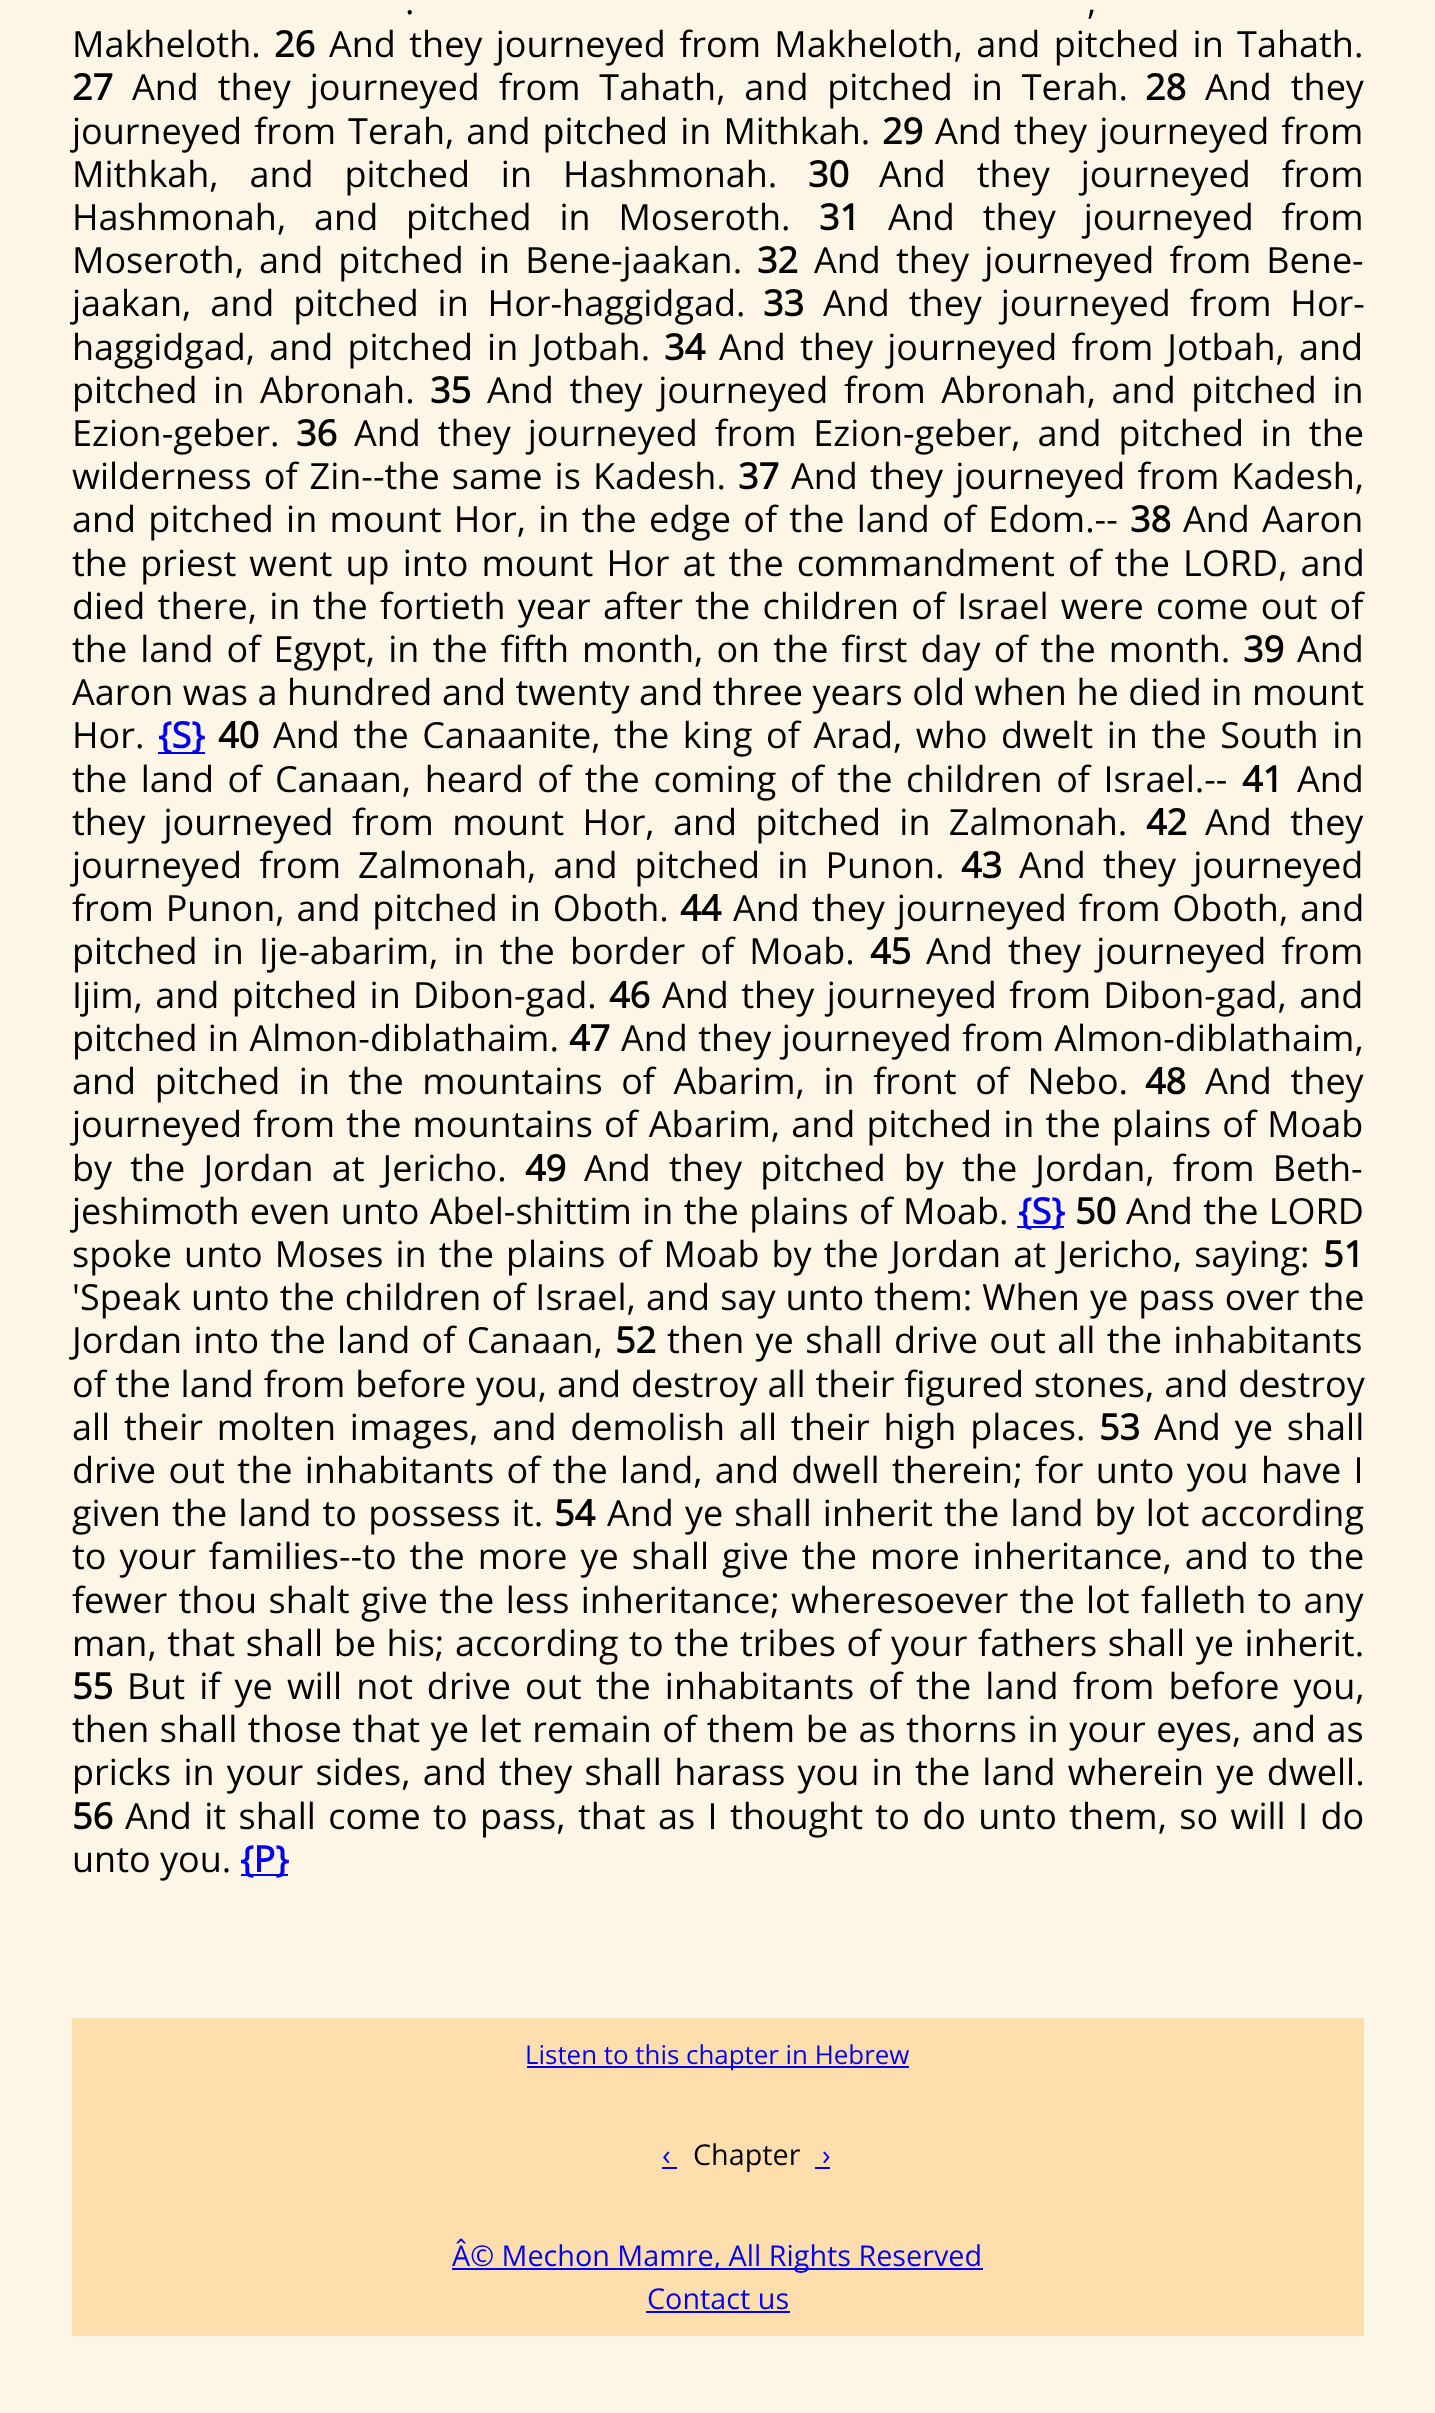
<!DOCTYPE html>
<meta charset="utf-8">
<style>body { margin: 0 } canvas { display: block }</style>
<canvas id="canvas" width="1435" height="2413"></canvas>
<script>
window.onload = function () {
    const canvas = document.getElementById('canvas');
    const context = canvas.getContext('2d');
    context.miterLimit = 4;
    context.fontKerning = 'normal';

    context.fillStyle = 'rgb(253, 245, 230)';
    context.fillRect(0, 0, 1435, 2413);
    context.fillStyle = 'rgb(0, 0, 238)';
    context.fillRect(158, 752, 47, 2);
    context.fillRect(1017, 1226, 47, 2);
    context.fillRect(241, 1874, 47, 2);
    context.fillStyle = 'rgb(255, 222, 173)';
    context.fillRect(72, 2018, 1292, 318);
    context.fillStyle = 'rgb(0, 0, 238)';
    context.fillRect(527, 2066, 382, 2);
    context.fillRect(662, 2167, 15, 2);
    context.fillRect(815, 2167, 15, 2);
    context.fillRect(452, 2268, 531, 2);
    context.fillRect(646, 2311, 144, 2);
    context.wordSpacing = '6.25px';
    context.font = '36px Open Sans';
    context.fillStyle = 'rgb(0, 0, 0)';
    context.fillText('.', 405, 14);
    context.fillText(',', 1087, 14);
    context.wordSpacing = '0px';
    context.fillText('Makheloth.', 72, 57);
    context.font = 'bold 36px Open Sans';
    context.fillText('26', 274, 57);
    context.wordSpacing = '4px';
    context.font = '36px Open Sans';
    context.fillText('And they journeyed from Makheloth, and pitched in Tahath.', 329, 57);
    context.wordSpacing = '0px';
    context.font = 'bold 36px Open Sans';
    context.fillText('27', 72, 100);
    context.wordSpacing = '9.5px';
    context.font = '36px Open Sans';
    context.fillText('And they journeyed from Tahath, and pitched in Terah.', 132, 100);
    context.wordSpacing = '0px';
    context.font = 'bold 36px Open Sans';
    context.fillText('28', 1145, 100);
    context.wordSpacing = '9.5px';
    context.font = '36px Open Sans';
    context.fillText('And they', 1205, 100);
    context.wordSpacing = '2.75px';
    context.fillText('journeyed from Terah, and pitched in Mithkah.', 72, 144);
    context.wordSpacing = '0px';
    context.font = 'bold 36px Open Sans';
    context.fillText('29', 882, 144);
    context.wordSpacing = '2.75px';
    context.font = '36px Open Sans';
    context.fillText('And they journeyed from', 935, 144);
    context.wordSpacing = '21.5px';
    context.fillText('Mithkah, and pitched in Hashmonah.', 72, 187);
    context.wordSpacing = '0px';
    context.font = 'bold 36px Open Sans';
    context.fillText('30', 808, 187);
    context.wordSpacing = '21.5px';
    context.font = '36px Open Sans';
    context.fillText('And they journeyed from', 879, 187);
    context.wordSpacing = '18.5px';
    context.fillText('Hashmonah, and pitched in Moseroth.', 72, 230);
    context.wordSpacing = '0px';
    context.font = 'bold 36px Open Sans';
    context.fillText('31', 819, 230);
    context.wordSpacing = '18.5px';
    context.font = '36px Open Sans';
    context.fillText('And they journeyed from', 888, 230);
    context.wordSpacing = '5.75px';
    context.fillText('Moseroth, and pitched in Bene-jaakan.', 72, 273);
    context.wordSpacing = '0px';
    context.font = 'bold 36px Open Sans';
    context.fillText('32', 757, 273);
    context.wordSpacing = '5.75px';
    context.font = '36px Open Sans';
    context.fillText('And they journeyed from Bene-', 814, 273);
    context.wordSpacing = '9.5px';
    context.fillText('jaakan, and pitched in Hor-haggidgad.', 72, 316);
    context.wordSpacing = '0px';
    context.font = 'bold 36px Open Sans';
    context.fillText('33', 763, 316);
    context.wordSpacing = '9.5px';
    context.font = '36px Open Sans';
    context.fillText('And they journeyed from Hor-', 823, 316);
    context.wordSpacing = '4.75px';
    context.fillText('haggidgad, and pitched in Jotbah.', 72, 360);
    context.wordSpacing = '0px';
    context.font = 'bold 36px Open Sans';
    context.fillText('34', 664, 360);
    context.wordSpacing = '4.75px';
    context.font = '36px Open Sans';
    context.fillText('And they journeyed from Jotbah, and', 719, 360);
    context.wordSpacing = '6.25px';
    context.fillText('pitched in Abronah.', 72, 403);
    context.wordSpacing = '0px';
    context.font = 'bold 36px Open Sans';
    context.fillText('35', 430, 403);
    context.wordSpacing = '6.25px';
    context.font = '36px Open Sans';
    context.fillText('And they journeyed from Abronah, and pitched in', 487, 403);
    context.wordSpacing = '0px';
    context.fillText('Ezion-geber.', 72, 446);
    context.font = 'bold 36px Open Sans';
    context.fillText('36', 296, 446);
    context.wordSpacing = '7.5px';
    context.font = '36px Open Sans';
    context.fillText('And they journeyed from Ezion-geber, and pitched in the', 354, 446);
    context.wordSpacing = '2.75px';
    context.fillText('wilderness of Zin--the same is Kadesh.', 72, 489);
    context.wordSpacing = '0px';
    context.font = 'bold 36px Open Sans';
    context.fillText('37', 738, 489);
    context.wordSpacing = '2.75px';
    context.font = '36px Open Sans';
    context.fillText('And they journeyed from Kadesh,', 791, 489);
    context.wordSpacing = '2.9px';
    context.fillText('and pitched in mount Hor, in the edge of the land of Edom.--', 72, 532);
    context.wordSpacing = '0px';
    context.font = 'bold 36px Open Sans';
    context.fillText('38', 1130, 532);
    context.wordSpacing = '2.9px';
    context.font = '36px Open Sans';
    context.fillText('And Aaron', 1183, 532);
    context.wordSpacing = '3.75px';
    context.fillText('the priest went up into mount Hor at the commandment of the LORD, and', 72, 576);
    context.wordSpacing = '2.9px';
    context.fillText('died there, in the fortieth year after the children of Israel were come out of', 72, 619);
    context.wordSpacing = '3.75px';
    context.fillText('the land of Egypt, in the fifth month, on the first day of the month.', 72, 662);
    context.wordSpacing = '0px';
    context.font = 'bold 36px Open Sans';
    context.fillText('39', 1243, 662);
    context.font = '36px Open Sans';
    context.fillText('And', 1297, 662);
    context.wordSpacing = '0.25px';
    context.fillText('Aaron was a hundred and twenty and three years old when he died in mount', 72, 705);
    context.wordSpacing = '0px';
    context.fillText('Hor.', 72, 748);
    context.font = 'bold 36px Open Sans';
    context.fillStyle = 'rgb(0, 0, 238)';
    context.fillText('{S}', 158, 748);
    context.fillStyle = 'rgb(0, 0, 0)';
    context.fillText('40', 218, 748);
    context.wordSpacing = '4.25px';
    context.font = '36px Open Sans';
    context.fillText('And the Canaanite, the king of Arad, who dwelt in the South in', 273, 748);
    context.fillText('the land of Canaan, heard of the coming of the children of Israel.--', 72, 792);
    context.wordSpacing = '0px';
    context.font = 'bold 36px Open Sans';
    context.fillText('41', 1242, 792);
    context.font = '36px Open Sans';
    context.fillText('And', 1297, 792);
    context.wordSpacing = '9px';
    context.fillText('they journeyed from mount Hor, and pitched in Zalmonah.', 72, 835);
    context.wordSpacing = '0px';
    context.font = 'bold 36px Open Sans';
    context.fillText('42', 1146, 835);
    context.wordSpacing = '9px';
    context.font = '36px Open Sans';
    context.fillText('And they', 1205, 835);
    context.wordSpacing = '7.75px';
    context.fillText('journeyed from Zalmonah, and pitched in Punon.', 72, 878);
    context.wordSpacing = '0px';
    context.font = 'bold 36px Open Sans';
    context.fillText('43', 961, 878);
    context.wordSpacing = '7.75px';
    context.font = '36px Open Sans';
    context.fillText('And they journeyed', 1019, 878);
    context.wordSpacing = '2.5px';
    context.fillText('from Punon, and pitched in Oboth.', 72, 921);
    context.wordSpacing = '0px';
    context.font = 'bold 36px Open Sans';
    context.fillText('44', 680, 921);
    context.wordSpacing = '2.5px';
    context.font = '36px Open Sans';
    context.fillText('And they journeyed from Oboth, and', 733, 921);
    context.wordSpacing = '5.75px';
    context.fillText('pitched in Ije-abarim, in the border of Moab.', 72, 964);
    context.wordSpacing = '0px';
    context.font = 'bold 36px Open Sans';
    context.fillText('45', 870, 964);
    context.wordSpacing = '5.75px';
    context.font = '36px Open Sans';
    context.fillText('And they journeyed from', 926, 964);
    context.wordSpacing = '3px';
    context.fillText('Ijim, and pitched in Dibon-gad.', 72, 1008);
    context.wordSpacing = '0px';
    context.font = 'bold 36px Open Sans';
    context.fillText('46', 609, 1008);
    context.wordSpacing = '3px';
    context.font = '36px Open Sans';
    context.fillText('And they journeyed from Dibon-gad, and', 662, 1008);
    context.wordSpacing = '1px';
    context.fillText('pitched in Almon-diblathaim.', 72, 1051);
    context.wordSpacing = '0px';
    context.font = 'bold 36px Open Sans';
    context.fillText('47', 569, 1051);
    context.wordSpacing = '1px';
    context.font = '36px Open Sans';
    context.fillText('And they journeyed from Almon-diblathaim,', 621, 1051);
    context.wordSpacing = '9.25px';
    context.fillText('and pitched in the mountains of Abarim, in front of Nebo.', 72, 1094);
    context.wordSpacing = '0px';
    context.font = 'bold 36px Open Sans';
    context.fillText('48', 1145, 1094);
    context.wordSpacing = '9.25px';
    context.font = '36px Open Sans';
    context.fillText('And they', 1205, 1094);
    context.wordSpacing = '1.8px';
    context.fillText('journeyed from the mountains of Abarim, and pitched in the plains of Moab', 72, 1137);
    context.wordSpacing = '8.75px';
    context.fillText('by the Jordan at Jericho.', 72, 1181);
    context.wordSpacing = '0px';
    context.font = 'bold 36px Open Sans';
    context.fillText('49', 525, 1181);
    context.wordSpacing = '8.75px';
    context.font = '36px Open Sans';
    context.fillText('And they pitched by the Jordan, from Beth-', 584, 1181);
    context.wordSpacing = '1px';
    context.fillText('jeshimoth even unto Abel-shittim in the plains of Moab.', 72, 1224);
    context.wordSpacing = '0px';
    context.font = 'bold 36px Open Sans';
    context.fillStyle = 'rgb(0, 0, 238)';
    context.fillText('{S}', 1018, 1224);
    context.fillStyle = 'rgb(0, 0, 0)';
    context.fillText('50', 1075, 1224);
    context.wordSpacing = '1px';
    context.font = '36px Open Sans';
    context.fillText('And the LORD', 1126, 1224);
    context.wordSpacing = '2.75px';
    context.fillText('spoke unto Moses in the plains of Moab by the Jordan at Jericho, saying:', 72, 1267);
    context.wordSpacing = '0px';
    context.font = 'bold 36px Open Sans';
    context.fillText('51', 1323, 1267);
    context.wordSpacing = '0.75px';
    context.font = '36px Open Sans';
    context.fillText('\'Speak unto the children of Israel, and say unto them: When ye pass over the', 72, 1310);
    context.wordSpacing = '2px';
    context.fillText('Jordan into the land of Canaan,', 72, 1353);
    context.wordSpacing = '0px';
    context.font = 'bold 36px Open Sans';
    context.fillText('52', 615, 1353);
    context.wordSpacing = '2px';
    context.font = '36px Open Sans';
    context.fillText('then ye shall drive out all the inhabitants', 667, 1353);
    context.wordSpacing = '0.5px';
    context.fillText('of the land from before you, and destroy all their figured stones, and destroy', 72, 1397);
    context.wordSpacing = '4.5px';
    context.fillText('all their molten images, and demolish all their high places.', 72, 1440);
    context.wordSpacing = '0px';
    context.font = 'bold 36px Open Sans';
    context.fillText('53', 1099, 1440);
    context.wordSpacing = '4.5px';
    context.font = '36px Open Sans';
    context.fillText('And ye shall', 1154, 1440);
    context.wordSpacing = '3px';
    context.fillText('drive out the inhabitants of the land, and dwell therein; for unto you have I', 72, 1483);
    context.wordSpacing = '1.75px';
    context.fillText('given the land to possess it.', 72, 1526);
    context.wordSpacing = '0px';
    context.font = 'bold 36px Open Sans';
    context.fillText('54', 554, 1526);
    context.wordSpacing = '1.75px';
    context.font = '36px Open Sans';
    context.fillText('And ye shall inherit the land by lot according', 607, 1526);
    context.wordSpacing = '3.6px';
    context.fillText('to your families--to the more ye shall give the more inheritance, and to the', 72, 1569);
    context.wordSpacing = '2px';
    context.fillText('fewer thou shalt give the less inheritance; wheresoever the lot falleth to any', 72, 1613);
    context.wordSpacing = '1.25px';
    context.fillText('man, that shall be his; according to the tribes of your fathers shall ye inherit.', 72, 1656);
    context.wordSpacing = '0px';
    context.font = 'bold 36px Open Sans';
    context.fillText('55', 72, 1699);
    context.wordSpacing = '4.75px';
    context.font = '36px Open Sans';
    context.fillText('But if ye will not drive out the inhabitants of the land from before you,', 127, 1699);
    context.wordSpacing = '1.25px';
    context.fillText('then shall those that ye let remain of them be as thorns in your eyes, and as', 72, 1742);
    context.wordSpacing = '2.9px';
    context.fillText('pricks in your sides, and they shall harass you in the land wherein ye dwell.', 72, 1785);
    context.wordSpacing = '0px';
    context.font = 'bold 36px Open Sans';
    context.fillText('56', 72, 1829);
    context.wordSpacing = '3px';
    context.font = '36px Open Sans';
    context.fillText('And it shall come to pass, that as I thought to do unto them, so will I do', 125, 1829);
    context.wordSpacing = '0px';
    context.fillText('unto you.', 72, 1872);
    context.font = 'bold 36px Open Sans';
    context.fillStyle = 'rgb(0, 0, 238)';
    context.fillText('{P}', 240, 1872);
    context.font = '25.9px Open Sans';
    context.fillText('Listen to this chapter in Hebrew', 525, 2064);
    context.font = '28.75px Open Sans';
    context.fillText('‹', 662, 2165);
    context.fillStyle = 'rgb(0, 0, 0)';
    context.fillText('Chapter', 693, 2165);
    context.fillStyle = 'rgb(0, 0, 238)';
    context.fillText('›', 822, 2165);
    context.fillText('Â© Mechon Mamre, All Rights Reserved', 452, 2266);
    context.fillText('Contact us', 647, 2309);
};
</script>
